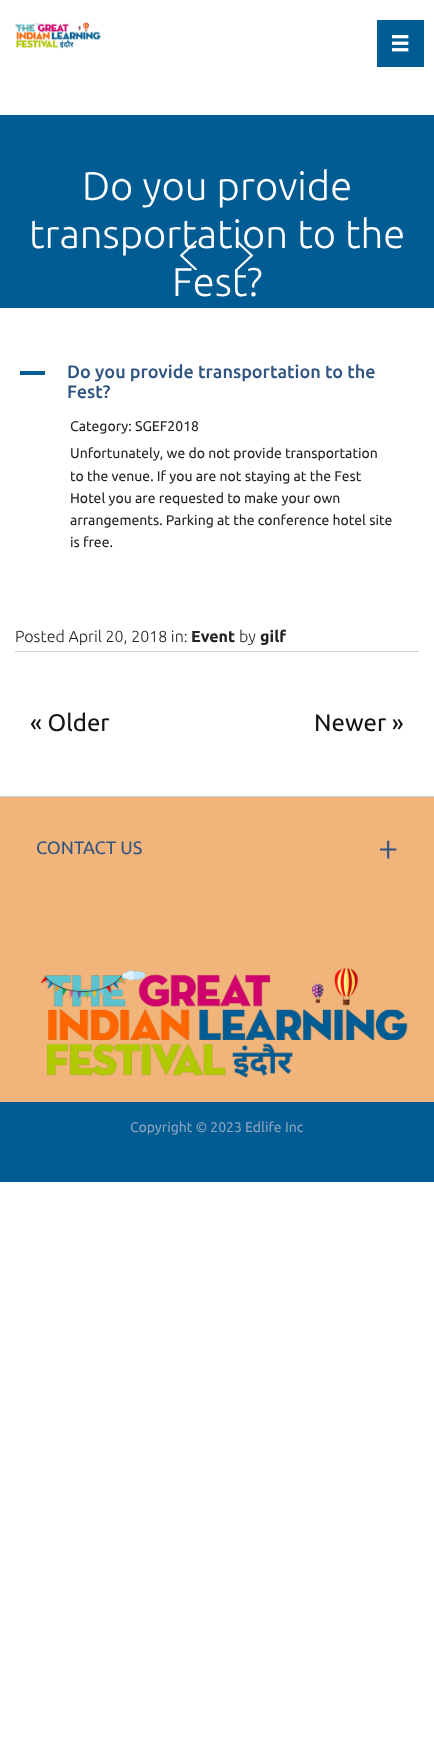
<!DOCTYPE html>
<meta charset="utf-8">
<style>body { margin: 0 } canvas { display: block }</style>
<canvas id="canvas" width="434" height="1759"></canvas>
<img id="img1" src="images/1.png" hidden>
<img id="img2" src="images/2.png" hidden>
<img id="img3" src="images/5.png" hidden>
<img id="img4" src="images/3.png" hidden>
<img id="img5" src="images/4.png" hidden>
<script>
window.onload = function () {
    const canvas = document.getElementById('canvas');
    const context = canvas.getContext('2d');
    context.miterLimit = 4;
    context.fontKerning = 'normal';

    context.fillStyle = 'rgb(255, 255, 255)';
    context.fillRect(0, 0, 434, 1759);
    context.drawImage(document.getElementById('img1'), 15, 22, 86, 27);
    context.fillStyle = 'rgb(0, 92, 146)';
    context.fillRect(377, 20, 47, 47);
    context.drawImage(document.getElementById('img2'), 392, 35, 17, 17);
    context.fillRect(0, 115, 434, 193);
    context.fillRect(20, 371, 25, 4);
    context.fillStyle = 'rgb(210, 210, 210)';
    context.fillRect(15, 651, 404, 1);
    context.fillStyle = 'rgb(241, 180, 122)';
    context.fillRect(0, 797, 434, 305);
    context.fillStyle = 'rgb(211, 211, 211)';
    context.fillRect(0, 796, 434, 1);
    context.drawImage(document.getElementById('img3'), 37, 968, 371, 110);
    context.fillStyle = 'rgb(0, 92, 146)';
    context.fillRect(0, 1102, 434, 80);
    context.font = '300 40px Ubuntu';
    context.fillStyle = 'rgb(255, 255, 255)';
    context.fillText('Do you provide', 82, 200);
    context.fillText('transportation to the', 29, 248);
    context.fillText('Fest?', 172, 296);
    context.drawImage(document.getElementById('img4'), 180, 240, 17, 30);
    context.drawImage(document.getElementById('img5'), 236, 241, 17, 29);
    context.font = '500 18px Ubuntu';
    context.fillStyle = 'rgb(48, 84, 129)';
    context.fillText('Do you provide transportation to the', 67, 378);
    context.fillText('Fest?', 67, 398);
    context.font = '14px Ubuntu';
    context.fillStyle = 'rgb(36, 36, 36)';
    context.fillText('Category: SGEF2018', 70, 431);
    context.fillText('Unfortunately, we do not provide transportation', 70, 458);
    context.fillText('to the venue. If you are not staying at the Fest', 70, 481);
    context.fillText('Hotel you are requested to make your own', 70, 503);
    context.fillText('arrangements. Parking at the conference hotel site', 70, 525);
    context.fillText('is free.', 70, 547);
    context.font = '300 16px Ubuntu';
    context.fillText('Posted April 20, 2018 in:', 15, 642);
    context.font = 'bold 16px Ubuntu';
    context.fillText('Event', 191, 642);
    context.font = '300 16px Ubuntu';
    context.fillText('by', 239, 642);
    context.font = 'bold 16px Ubuntu';
    context.fillText('gilf', 260, 642);
    context.font = '24px Ubuntu';
    context.fillStyle = 'rgb(18, 18, 18)';
    context.fillText('« Older', 30, 731);
    context.fillText('Newer »', 314, 731);
    context.font = '18px Ubuntu';
    context.fillStyle = 'rgb(48, 84, 129)';
    context.fillText('CONTACT US', 36, 854);
    context.font = '300 36px Ubuntu';
    context.fillText('+', 378, 860);
    context.font = '14px Ubuntu';
    context.fillStyle = 'rgb(140, 162, 191)';
    context.fillText('Copyright © 2023 Edlife Inc', 130, 1132);
};
</script>
